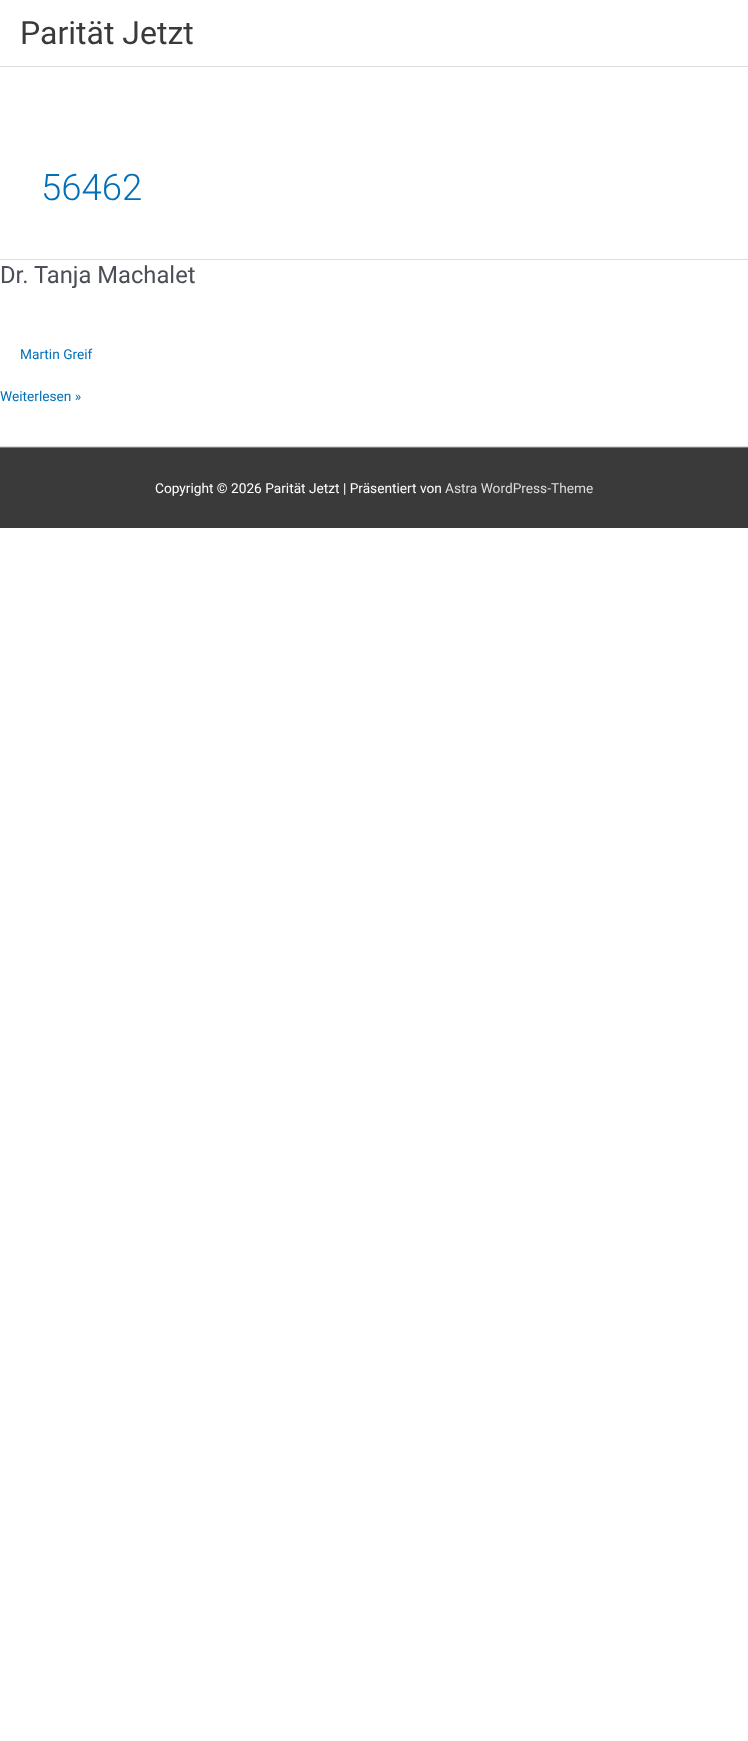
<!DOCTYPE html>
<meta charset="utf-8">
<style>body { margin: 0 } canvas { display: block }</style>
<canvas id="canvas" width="748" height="1741"></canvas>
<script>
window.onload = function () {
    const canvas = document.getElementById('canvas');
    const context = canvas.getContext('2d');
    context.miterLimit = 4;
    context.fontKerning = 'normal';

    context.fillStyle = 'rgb(255, 255, 255)';
    context.fillRect(0, 0, 748, 1741);
    context.fillStyle = 'rgb(221, 221, 221)';
    context.fillRect(0, 66, 748, 1);
    context.fillRect(0, 259, 748, 1);
    context.fillRect(0, 446, 748, 1);
    context.fillStyle = 'rgb(122, 122, 122)';
    context.fillRect(0, 447, 748, 1);
    context.fillStyle = 'rgb(58, 58, 58)';
    context.fillRect(0, 448, 748, 80);
    context.font = '32px Roboto';
    context.fillText('Parität Jetzt', 20, 44);
    context.font = '300 36.5px Roboto';
    context.fillStyle = 'rgb(1, 112, 185)';
    context.fillText('56462', 41, 200);
    context.font = '23.75px Roboto';
    context.fillStyle = 'rgb(75, 79, 88)';
    context.fillText('Dr. Tanja Machalet', 0, 283);
    context.font = '13.7px Roboto';
    context.fillStyle = 'rgb(1, 112, 185)';
    context.fillText('Martin Greif', 20, 359);
    context.fillText('Weiterlesen »', 0, 401);
    context.fillStyle = 'rgb(255, 255, 255)';
    context.fillText('Copyright © 2026 Parität Jetzt | Präsentiert von', 155, 493);
    context.fillStyle = 'rgb(221, 221, 221)';
    context.fillText('Astra WordPress-Theme', 445, 493);
};
</script>
